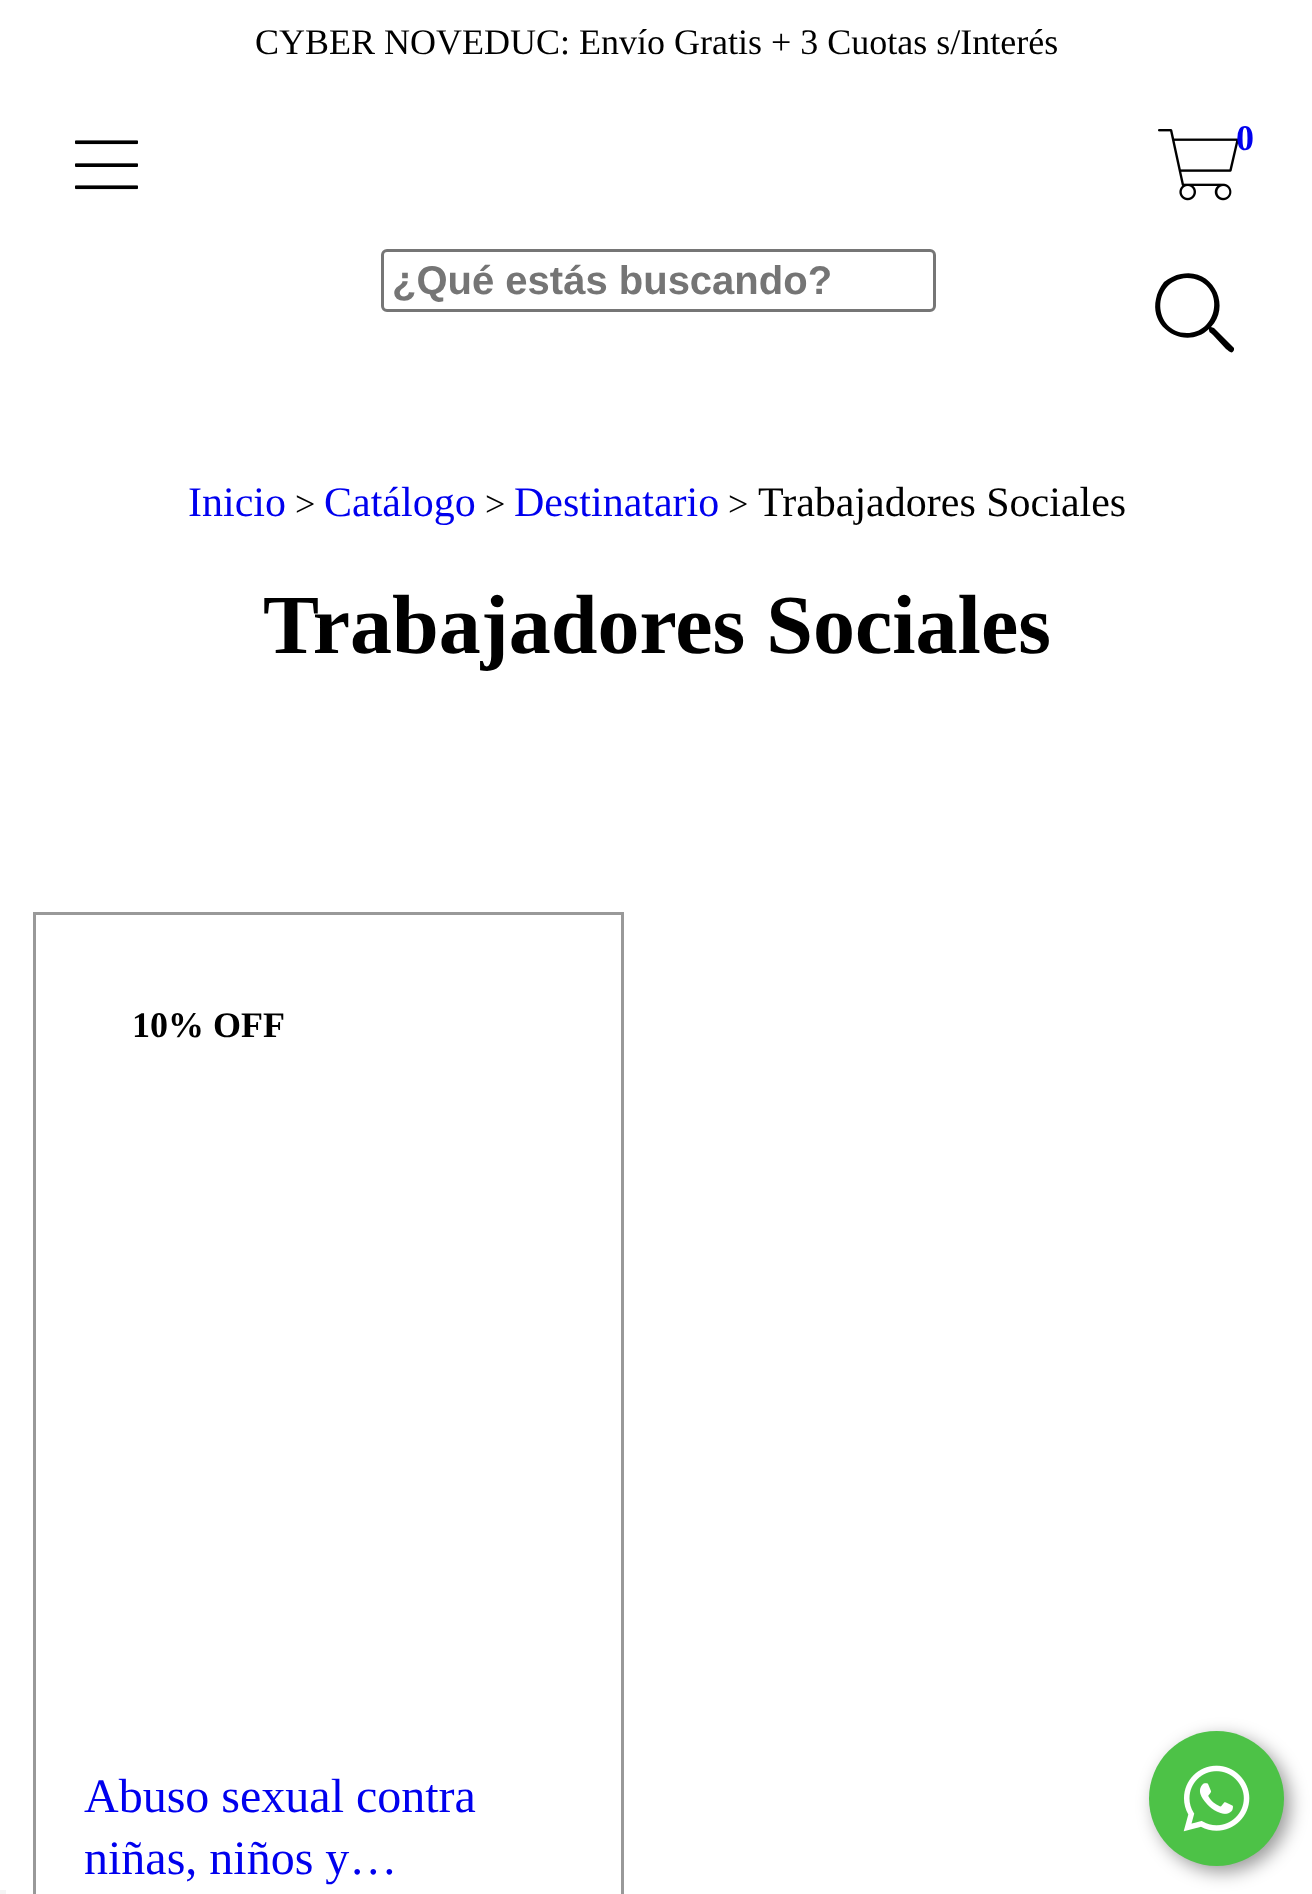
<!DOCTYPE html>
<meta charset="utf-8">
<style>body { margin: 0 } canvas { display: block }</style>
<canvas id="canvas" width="1312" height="1894"></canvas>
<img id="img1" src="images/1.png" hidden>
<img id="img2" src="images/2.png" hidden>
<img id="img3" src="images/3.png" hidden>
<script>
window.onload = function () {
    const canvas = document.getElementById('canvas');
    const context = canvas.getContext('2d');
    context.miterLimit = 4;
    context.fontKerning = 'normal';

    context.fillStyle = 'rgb(255, 255, 255)';
    context.fillRect(0, 0, 1312, 1894);
    context.drawImage(document.getElementById('img1'), 75, 140, 63, 50);
    context.drawImage(document.getElementById('img2'), 1158, 129, 81, 72);
    context.beginPath();
    context.roundRect(382.5, 250.5, 552, 60, 4.5);
    context.strokeStyle = 'rgb(118, 118, 118)';
    context.lineWidth = 3;
    context.stroke();
    context.fillStyle = 'rgb(0, 0, 0)';
    context.beginPath();
    context.moveTo(1234, 348);
    context.lineTo(1214, 328);
    context.lineTo(1211, 327);
    context.bezierCurveTo(1232, 305, 1212, 267, 1181, 274);
    context.bezierCurveTo(1175, 275, 1169, 278, 1164, 282);
    context.bezierCurveTo(1160, 287, 1157, 293, 1156, 299);
    context.bezierCurveTo(1149, 330, 1187, 350, 1209, 329);
    context.bezierCurveTo(1209, 333, 1210, 332, 1213, 335);
    context.lineTo(1226, 349);
    context.bezierCurveTo(1229, 351, 1232, 355, 1234, 350);
    context.closePath();
    context.moveTo(1187, 333);
    context.bezierCurveTo(1153, 333, 1150, 280, 1187, 278);
    context.bezierCurveTo(1192, 278, 1196, 279, 1200, 281);
    context.bezierCurveTo(1225, 294, 1215, 333, 1187, 333);
    context.closePath();
    context.fill();
    context.fillStyle = 'rgb(245, 245, 245)';
    context.fillRect(0, 1890, 6, 4);
    context.strokeStyle = 'rgb(153, 153, 153)';
    context.strokeRect(34.5, 913.5, 588, 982);
    context.fillStyle = 'rgba(0, 0, 0, 0.4)';
    context.filter = 'blur(9px)';
    context.beginPath();
    context.roundRect(1155, 1737, 135, 135, 67.5);
    context.fill();
    context.filter = 'none';
    context.fillStyle = 'rgb(77, 194, 71)';
    context.beginPath();
    context.arc(1216.5, 1798.5, 67.5, 0, 2 * Math.PI);
    context.fill();
    context.drawImage(document.getElementById('img3'), 1183, 1765, 67, 67);
    context.font = '36px Liberation Serif';
    context.fillStyle = 'rgb(0, 0, 0)';
    context.fillText('CYBER NOVEDUC: Envío Gratis + 3 Cuotas s/Interés', 255, 54);
    context.font = 'bold 36px Liberation Serif';
    context.fillStyle = 'rgb(0, 0, 238)';
    context.fillText('0', 1236, 150);
    context.font = 'bold 40px Liberation Sans';
    context.fillStyle = 'rgb(117, 117, 117)';
    context.fillText('¿Qué estás buscando?', 392, 294);
    context.font = '42px Liberation Serif';
    context.fillStyle = 'rgb(0, 0, 238)';
    context.fillText('Inicio', 188, 516);
    context.font = '36px Liberation Serif';
    context.fillStyle = 'rgb(0, 0, 0)';
    context.fillText('>', 295, 516);
    context.font = '42px Liberation Serif';
    context.fillStyle = 'rgb(0, 0, 238)';
    context.fillText('Catálogo', 324, 516);
    context.font = '36px Liberation Serif';
    context.fillStyle = 'rgb(0, 0, 0)';
    context.fillText('>', 485, 516);
    context.font = '42px Liberation Serif';
    context.fillStyle = 'rgb(0, 0, 238)';
    context.fillText('Destinatario', 514, 516);
    context.font = '36px Liberation Serif';
    context.fillStyle = 'rgb(0, 0, 0)';
    context.fillText('>', 728, 516);
    context.font = '42px Liberation Serif';
    context.fillText('Trabajadores Sociales', 758, 516);
    context.font = 'bold 84px Liberation Serif';
    context.fillText('Trabajadores Sociales', 263, 653);
    context.font = 'bold 36px Liberation Serif';
    context.fillText('10% OFF', 132, 1037);
    context.font = '48px Liberation Serif';
    context.fillStyle = 'rgb(0, 0, 238)';
    context.fillText('Abuso sexual contra', 84, 1812);
    context.fillText('niñas, niños y…', 84, 1874);
};
</script>
